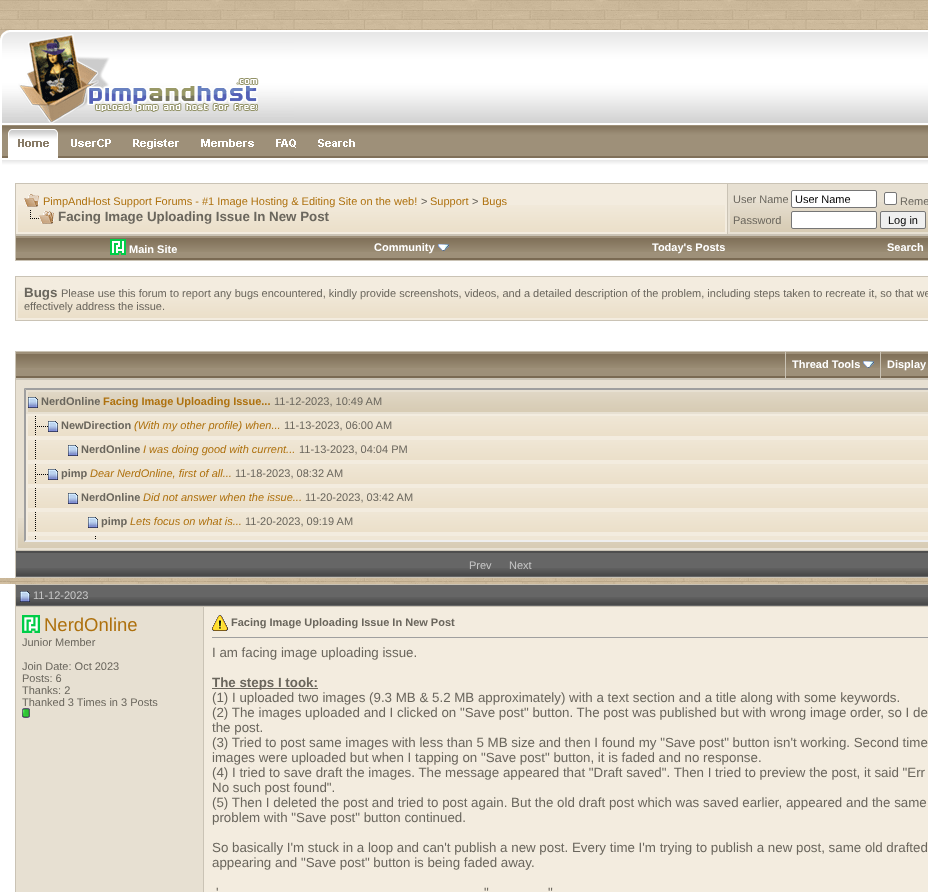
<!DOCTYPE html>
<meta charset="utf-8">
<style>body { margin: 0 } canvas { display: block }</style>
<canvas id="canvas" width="928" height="892"></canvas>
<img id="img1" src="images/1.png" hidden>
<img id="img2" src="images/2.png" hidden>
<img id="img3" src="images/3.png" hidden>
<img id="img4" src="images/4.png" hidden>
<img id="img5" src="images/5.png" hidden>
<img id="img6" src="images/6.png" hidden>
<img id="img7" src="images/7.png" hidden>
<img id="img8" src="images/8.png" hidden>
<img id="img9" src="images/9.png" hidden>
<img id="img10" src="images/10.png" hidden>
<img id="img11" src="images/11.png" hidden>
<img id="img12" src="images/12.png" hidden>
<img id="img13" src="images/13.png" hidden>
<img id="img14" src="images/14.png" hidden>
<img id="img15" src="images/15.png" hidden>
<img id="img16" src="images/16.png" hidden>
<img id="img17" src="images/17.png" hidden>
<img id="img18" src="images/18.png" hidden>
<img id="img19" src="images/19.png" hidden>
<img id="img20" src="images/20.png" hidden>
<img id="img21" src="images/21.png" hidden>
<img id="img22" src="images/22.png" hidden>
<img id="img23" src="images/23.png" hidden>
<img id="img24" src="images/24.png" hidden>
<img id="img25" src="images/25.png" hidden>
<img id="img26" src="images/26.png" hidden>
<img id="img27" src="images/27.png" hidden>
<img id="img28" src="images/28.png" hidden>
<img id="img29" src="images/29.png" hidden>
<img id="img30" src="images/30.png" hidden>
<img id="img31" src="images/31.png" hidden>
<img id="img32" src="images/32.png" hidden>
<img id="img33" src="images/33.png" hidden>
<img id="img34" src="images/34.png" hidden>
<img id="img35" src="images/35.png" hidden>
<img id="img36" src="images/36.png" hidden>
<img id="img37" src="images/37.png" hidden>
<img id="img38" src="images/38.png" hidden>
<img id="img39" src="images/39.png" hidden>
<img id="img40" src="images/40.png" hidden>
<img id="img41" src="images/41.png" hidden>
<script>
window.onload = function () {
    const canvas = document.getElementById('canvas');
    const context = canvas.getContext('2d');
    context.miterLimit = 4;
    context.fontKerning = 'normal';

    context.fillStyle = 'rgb(255, 255, 255)';
    context.fillRect(0, 0, 928, 892);
    context.drawImage(document.getElementById('img1'), 0, 0, 928, 584);
    context.drawImage(document.getElementById('img2'), 0, 30, 294, 95);
    context.drawImage(document.getElementById('img3'), 294, 30, 634, 95);
    context.fillRect(0, 125, 2, 58);
    context.drawImage(document.getElementById('img4'), 2, 125, 63, 33);
    context.drawImage(document.getElementById('img5'), 65, 125, 57, 33);
    context.drawImage(document.getElementById('img6'), 122, 125, 67, 33);
    context.drawImage(document.getElementById('img7'), 189, 125, 75, 33);
    context.drawImage(document.getElementById('img8'), 264, 125, 43, 33);
    context.drawImage(document.getElementById('img9'), 307, 125, 59, 33);
    context.drawImage(document.getElementById('img10'), 366, 125, 562, 33);
    context.drawImage(document.getElementById('img11'), 2, 158, 926, 25);
    context.fillRect(0, 183, 928, 196);
    context.fillStyle = 'rgb(202, 195, 181)';
    context.fillRect(15, 183, 913, 78);
    context.fillStyle = 'rgb(243, 236, 223)';
    context.fillRect(18, 186, 707, 19);
    context.drawImage(document.getElementById('img12'), 18, 205, 707, 27);
    context.strokeStyle = 'rgb(243, 236, 223)';
    context.lineWidth = 2;
    context.strokeRect(17, 185, 709, 48);
    context.drawImage(document.getElementById('img13'), 24, 194, 15, 13);
    context.drawImage(document.getElementById('img14'), 30, 210, 24, 14);
    context.fillStyle = 'rgb(231, 224, 210)';
    context.fillRect(730, 186, 198, 16);
    context.drawImage(document.getElementById('img15'), 730, 202, 198, 30);
    context.strokeStyle = 'rgb(231, 224, 210)';
    context.strokeRect(729, 185, 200, 48);
    context.fillStyle = 'rgb(255, 255, 255)';
    context.beginPath();
    context.roundRect(791.5, 190.5, 85, 17, 1.5);
    context.fill();
    context.strokeStyle = 'rgb(118, 118, 118)';
    context.lineWidth = 1;
    context.stroke();
    context.beginPath();
    context.roundRect(884.5, 192.5, 12, 12, 1.5);
    context.fill();
    context.stroke();
    context.beginPath();
    context.roundRect(791.5, 211.5, 85, 17, 1.5);
    context.fill();
    context.stroke();
    context.fillStyle = 'rgb(239, 239, 239)';
    context.beginPath();
    context.roundRect(880.5, 211.5, 45, 17, 1.5);
    context.fill();
    context.stroke();
    context.fillStyle = 'rgb(158, 144, 121)';
    context.fillRect(16, 236, 912, 22);
    context.drawImage(document.getElementById('img16'), 16, 238, 256, 14);
    context.fillStyle = 'rgb(122, 106, 83)';
    context.fillRect(16, 258, 912, 2);
    context.drawImage(document.getElementById('img17'), 110, 239, 16, 16);
    context.drawImage(document.getElementById('img18'), 272, 238, 279, 14);
    context.drawImage(document.getElementById('img19'), 438, 244, 11, 7);
    context.drawImage(document.getElementById('img20'), 551, 238, 276, 14);
    context.drawImage(document.getElementById('img21'), 827, 238, 101, 14);
    context.fillStyle = 'rgb(202, 195, 181)';
    context.fillRect(15, 276, 913, 45);
    context.fillStyle = 'rgb(243, 236, 223)';
    context.fillRect(18, 279, 910, 12);
    context.drawImage(document.getElementById('img22'), 18, 291, 910, 27);
    context.strokeStyle = 'rgb(243, 236, 223)';
    context.lineWidth = 2;
    context.strokeRect(17, 278, 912, 41);
    context.fillStyle = 'rgb(202, 195, 181)';
    context.fillRect(15, 351, 913, 227);
    context.fillStyle = 'rgb(158, 144, 121)';
    context.fillRect(16, 352, 769, 24);
    context.drawImage(document.getElementById('img23'), 16, 354, 769, 14);
    context.fillStyle = 'rgb(122, 106, 83)';
    context.fillRect(16, 376, 769, 2);
    context.fillStyle = 'rgb(158, 144, 121)';
    context.fillRect(786, 352, 94, 24);
    context.drawImage(document.getElementById('img24'), 786, 354, 94, 14);
    context.fillStyle = 'rgb(122, 106, 83)';
    context.fillRect(786, 376, 94, 2);
    context.drawImage(document.getElementById('img25'), 863, 361, 11, 7);
    context.fillStyle = 'rgb(158, 144, 121)';
    context.fillRect(881, 352, 47, 24);
    context.drawImage(document.getElementById('img26'), 881, 354, 47, 14);
    context.fillStyle = 'rgb(122, 106, 83)';
    context.fillRect(881, 376, 47, 2);
    context.fillStyle = 'rgb(255, 255, 255)';
    context.fillRect(0, 379, 15, 199);
    context.fillStyle = 'rgb(231, 224, 210)';
    context.fillRect(18, 382, 910, 136);
    context.drawImage(document.getElementById('img27'), 18, 518, 910, 30);
    context.strokeStyle = 'rgb(231, 224, 210)';
    context.strokeRect(17, 381, 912, 168);
    context.fillStyle = 'rgb(159, 159, 159)';
    context.beginPath();
    context.moveTo(24, 388);
    context.lineTo(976, 388);
    context.lineTo(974, 390);
    context.lineTo(26, 390);
    context.closePath();
    context.fill();
    context.fillStyle = 'rgb(238, 238, 238)';
    context.beginPath();
    context.moveTo(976, 542);
    context.lineTo(24, 542);
    context.lineTo(26, 540);
    context.lineTo(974, 540);
    context.closePath();
    context.fill();
    context.fillStyle = 'rgb(159, 159, 159)';
    context.beginPath();
    context.moveTo(24, 542);
    context.lineTo(24, 388);
    context.lineTo(26, 390);
    context.lineTo(26, 540);
    context.closePath();
    context.fill();
    context.drawImage(document.getElementById('img28'), 28, 392, 900, 20);
    context.drawImage(document.getElementById('img29'), 28, 397, 10, 11);
    context.drawImage(document.getElementById('img30'), 28, 416, 900, 20);
    context.strokeStyle = 'rgb(243, 236, 223)';
    context.strokeRect(27, 415, 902, 22);
    context.drawImage(document.getElementById('img31'), 35, 416, 13, 19);
    context.drawImage(document.getElementById('img32'), 48, 421, 10, 11);
    context.drawImage(document.getElementById('img30'), 28, 440, 900, 20);
    context.strokeRect(27, 439, 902, 22);
    context.drawImage(document.getElementById('img33'), 35, 440, 1, 19);
    context.drawImage(document.getElementById('img32'), 68, 445, 10, 11);
    context.drawImage(document.getElementById('img30'), 28, 464, 900, 20);
    context.strokeRect(27, 463, 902, 22);
    context.drawImage(document.getElementById('img31'), 35, 464, 13, 19);
    context.drawImage(document.getElementById('img32'), 48, 469, 10, 11);
    context.drawImage(document.getElementById('img30'), 28, 488, 900, 20);
    context.strokeRect(27, 487, 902, 22);
    context.drawImage(document.getElementById('img33'), 35, 488, 1, 19);
    context.drawImage(document.getElementById('img32'), 68, 493, 10, 11);
    context.drawImage(document.getElementById('img30'), 28, 512, 900, 20);
    context.strokeRect(27, 511, 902, 22);
    context.drawImage(document.getElementById('img33'), 35, 512, 1, 19);
    context.drawImage(document.getElementById('img32'), 88, 517, 10, 11);
    context.fillStyle = 'rgb(239, 230, 213)';
    context.fillRect(26, 536, 902, 4);
    context.fillStyle = 'rgb(102, 102, 102)';
    context.fillRect(16, 553, 912, 24);
    context.fillStyle = 'rgb(78, 78, 78)';
    context.fillRect(16, 551, 912, 2);
    context.save();
    context.beginPath();
    context.rect(26, 390, 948, 150);
    context.clip();
    context.strokeRect(27, 535, 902, 22);
    context.restore();
    context.drawImage(document.getElementById('img34'), 35, 536, 1, 3);
    context.drawImage(document.getElementById('img34'), 95, 536, 1, 3);
    context.drawImage(document.getElementById('img35'), 16, 568, 912, 8);
    context.fillStyle = 'rgb(102, 102, 102)';
    context.fillRect(16, 585, 912, 21);
    context.drawImage(document.getElementById('img36'), 16, 597, 188, 8);
    context.fillStyle = 'rgb(202, 195, 181)';
    context.fillRect(15, 584, 913, 1);
    context.fillRect(15, 606, 913, 1);
    context.fillRect(15, 584, 1, 308);
    context.drawImage(document.getElementById('img37'), 20, 591, 10, 11);
    context.drawImage(document.getElementById('img38'), 204, 597, 724, 8);
    context.fillStyle = 'rgb(231, 224, 210)';
    context.fillRect(16, 607, 187, 285);
    context.fillStyle = 'rgb(202, 195, 181)';
    context.fillRect(203, 607, 1, 285);
    context.drawImage(document.getElementById('img39'), 22, 615, 18, 18);
    context.drawImage(document.getElementById('img40'), 22, 708, 8, 10);
    context.fillStyle = 'rgb(243, 236, 223)';
    context.fillRect(206, 609, 722, 283);
    context.beginPath();
    context.moveTo(204, 607);
    context.lineTo(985, 607);
    context.lineTo(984, 609);
    context.lineTo(206, 609);
    context.closePath();
    context.fill();
    context.fillRect(204, 607, 2, 285);
    context.drawImage(document.getElementById('img41'), 212, 615, 16, 16);
    context.fillStyle = 'rgb(159, 159, 159)';
    context.fillRect(212, 637, 716, 1);
    context.fillStyle = 'rgb(106, 102, 93)';
    context.fillRect(212, 688, 106, 1);
    context.font = '11px Liberation Sans';
    context.fillStyle = 'rgb(174, 113, 14)';
    context.fillText('PimpAndHost Support Forums - #1 Image Hosting & Editing Site on the web!', 43, 205);
    context.fillStyle = 'rgb(106, 102, 93)';
    context.fillText('>', 421, 205);
    context.fillStyle = 'rgb(174, 113, 14)';
    context.fillText('Support', 430, 205);
    context.fillStyle = 'rgb(106, 102, 93)';
    context.fillText('>', 472, 205);
    context.fillStyle = 'rgb(174, 113, 14)';
    context.fillText('Bugs', 482, 205);
    context.font = 'bold 13.33px Liberation Sans';
    context.fillStyle = 'rgb(106, 102, 93)';
    context.fillText('Facing Image Uploading Issue In New Post', 58, 221);
    context.font = '11px Liberation Sans';
    context.fillText('User Name', 733, 203);
    context.fillStyle = 'rgb(0, 0, 0)';
    context.fillText('User Name', 795, 203);
    context.fillStyle = 'rgb(106, 102, 93)';
    context.fillText('Reme', 900, 205);
    context.fillText('Password', 733, 224);
    context.fillStyle = 'rgb(0, 0, 0)';
    context.fillText('Log in', 888, 224);
    context.font = 'bold 11px Liberation Sans';
    context.fillStyle = 'rgb(255, 255, 255)';
    context.fillText('Main Site', 129, 253);
    context.fillText('Community', 374, 251);
    context.fillText('Today\'s Posts', 652, 251);
    context.fillText('Search', 887, 251);
    context.font = 'bold 13.33px Liberation Sans';
    context.fillStyle = 'rgb(106, 102, 93)';
    context.fillText('Bugs', 24, 297);
    context.font = '11px Liberation Sans';
    context.fillText('Please use this forum to report any bugs encountered, kindly provide screenshots, videos, and a detailed description of the problem, including steps taken to recreate it, so that we', 61, 297);
    context.fillText('effectively address the issue.', 24, 310);
    context.font = 'bold 11px Liberation Sans';
    context.fillStyle = 'rgb(255, 255, 255)';
    context.fillText('Thread Tools', 792, 368);
    context.fillText('Display', 887, 368);
    context.fillStyle = 'rgb(106, 102, 93)';
    context.fillText('NerdOnline', 41, 405);
    context.fillStyle = 'rgb(174, 113, 14)';
    context.fillText('Facing Image Uploading Issue...', 103, 405);
    context.font = '11px Liberation Sans';
    context.fillStyle = 'rgb(106, 102, 93)';
    context.fillText('11-12-2023, 10:49 AM', 274, 405);
    context.font = 'bold 11px Liberation Sans';
    context.fillText('NewDirection', 61, 429);
    context.font = 'italic 11px Liberation Sans';
    context.fillStyle = 'rgb(174, 113, 14)';
    context.fillText('(With my other profile) when...', 134, 429);
    context.font = '11px Liberation Sans';
    context.fillStyle = 'rgb(106, 102, 93)';
    context.fillText('11-13-2023, 06:00 AM', 284, 429);
    context.font = 'bold 11px Liberation Sans';
    context.fillText('NerdOnline', 81, 453);
    context.font = 'italic 11px Liberation Sans';
    context.fillStyle = 'rgb(174, 113, 14)';
    context.fillText('I was doing good with current...', 143, 453);
    context.font = '11px Liberation Sans';
    context.fillStyle = 'rgb(106, 102, 93)';
    context.fillText('11-13-2023, 04:04 PM', 299, 453);
    context.font = 'bold 11px Liberation Sans';
    context.fillText('pimp', 61, 477);
    context.font = 'italic 11px Liberation Sans';
    context.fillStyle = 'rgb(174, 113, 14)';
    context.fillText('Dear NerdOnline, first of all...', 90, 477);
    context.font = '11px Liberation Sans';
    context.fillStyle = 'rgb(106, 102, 93)';
    context.fillText('11-18-2023, 08:32 AM', 235, 477);
    context.font = 'bold 11px Liberation Sans';
    context.fillText('NerdOnline', 81, 501);
    context.font = 'italic 11px Liberation Sans';
    context.fillStyle = 'rgb(174, 113, 14)';
    context.fillText('Did not answer when the issue...', 143, 501);
    context.font = '11px Liberation Sans';
    context.fillStyle = 'rgb(106, 102, 93)';
    context.fillText('11-20-2023, 03:42 AM', 305, 501);
    context.font = 'bold 11px Liberation Sans';
    context.fillText('pimp', 101, 525);
    context.font = 'italic 11px Liberation Sans';
    context.fillStyle = 'rgb(174, 113, 14)';
    context.fillText('Lets focus on what is...', 130, 525);
    context.font = '11px Liberation Sans';
    context.fillStyle = 'rgb(106, 102, 93)';
    context.fillText('11-20-2023, 09:19 AM', 245, 525);
    context.fillStyle = 'rgb(199, 199, 199)';
    context.fillText('Prev', 469, 569);
    context.fillText('Next', 509, 569);
    context.fillText('11-12-2023', 33, 599);
    context.font = '18.5px Liberation Sans';
    context.fillStyle = 'rgb(174, 113, 14)';
    context.fillText('NerdOnline', 44, 631);
    context.font = '11px Liberation Sans';
    context.fillStyle = 'rgb(106, 102, 93)';
    context.fillText('Junior Member', 22, 646);
    context.fillText('Join Date: Oct 2023', 22, 670);
    context.fillText('Posts: 6', 22, 682);
    context.fillText('Thanks: 2', 22, 694);
    context.fillText('Thanked 3 Times in 3 Posts', 22, 706);
    context.font = 'bold 11px Liberation Sans';
    context.fillText('Facing Image Uploading Issue In New Post', 231, 626);
    context.font = '13.33px Liberation Sans';
    context.fillText('I am facing image uploading issue.', 212, 657);
    context.font = 'bold 13.33px Liberation Sans';
    context.fillText('The steps I took:', 212, 687);
    context.font = '13.33px Liberation Sans';
    context.fillText('(1) I uploaded two images (9.3 MB & 5.2 MB approximately) with a text section and a title along with some keywords.', 212, 702);
    context.fillText('(2) The images uploaded and I clicked on "Save post" button. The post was published but with wrong image order, so I de', 212, 717);
    context.fillText('the post.', 212, 732);
    context.fillText('(3) Tried to post same images with less than 5 MB size and then I found my "Save post" button isn\'t working. Second time', 212, 747);
    context.fillText('images were uploaded but when I tapping on "Save post" button, it is faded and no response.', 212, 762);
    context.fillText('(4) I tried to save draft the images. The message appeared that "Draft saved". Then I tried to preview the post, it said "Err', 212, 777);
    context.fillText('No such post found".', 212, 792);
    context.fillText('(5) Then I deleted the post and tried to post again. But the old draft post which was saved earlier, appeared and the same', 212, 807);
    context.fillText('problem with "Save post" button continued.', 212, 822);
    context.fillText('So basically I\'m stuck in a loop and can\'t publish a new post. Every time I\'m trying to publish a new post, same old drafted', 212, 852);
    context.fillText('appearing and "Save post" button is being faded away.', 212, 867);
    context.fillText('\'', 216, 897);
    context.fillText('"', 484, 897);
    context.fillText('"', 548, 897);
};
</script>
